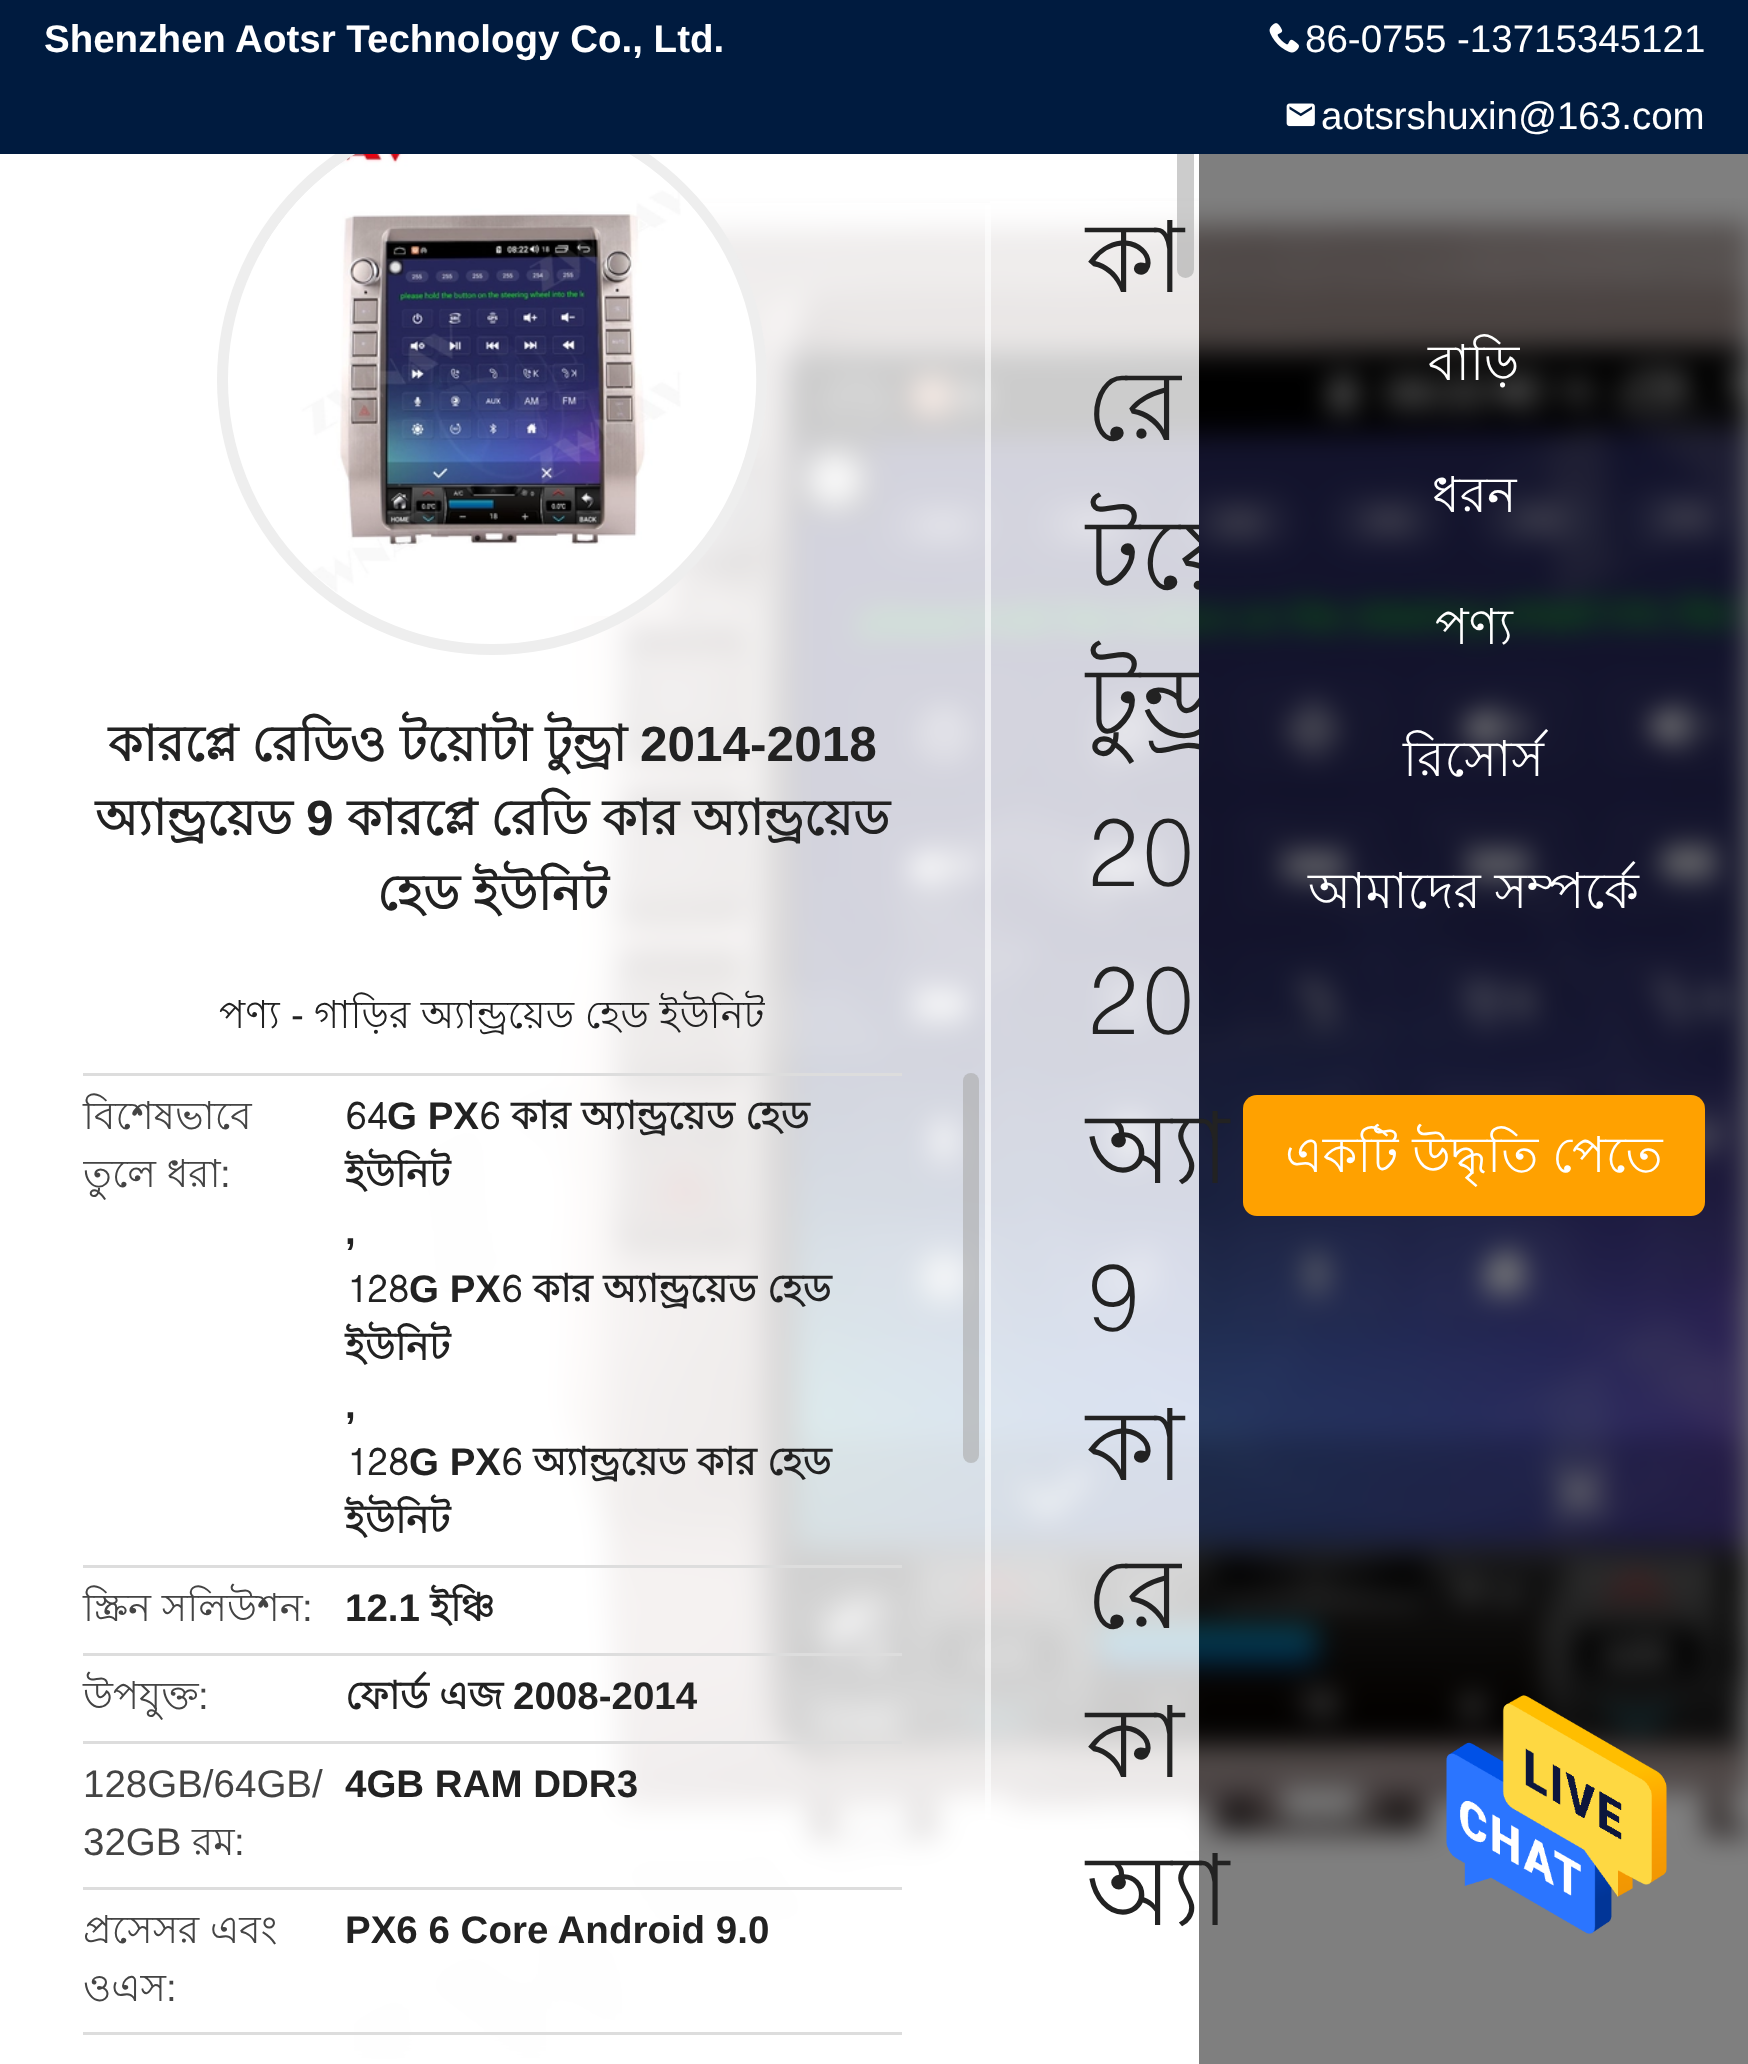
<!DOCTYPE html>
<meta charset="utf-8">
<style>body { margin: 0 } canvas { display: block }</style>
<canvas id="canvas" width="1748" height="2064"></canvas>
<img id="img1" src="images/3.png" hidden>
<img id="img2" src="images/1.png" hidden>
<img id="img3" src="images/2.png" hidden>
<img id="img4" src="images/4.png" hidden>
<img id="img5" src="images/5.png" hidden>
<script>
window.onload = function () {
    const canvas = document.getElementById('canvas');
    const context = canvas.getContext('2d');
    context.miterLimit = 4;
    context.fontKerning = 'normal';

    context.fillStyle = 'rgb(255, 255, 255)';
    context.fillRect(0, 0, 1748, 2064);
    context.drawImage(document.getElementById('img1'), 354, 198, 1394, 1861);
    context.fillStyle = 'rgba(255, 255, 255, 0.8)';
    context.fillRect(354, 203, 636, 1856);
    context.beginPath();
    context.arc(492, 380, 269.5, 0, 2 * Math.PI);
    context.strokeStyle = 'rgb(238, 238, 238)';
    context.lineWidth = 11;
    context.stroke();
    context.fillStyle = 'rgba(255, 255, 255, 0.6)';
    context.fillRect(985, 205, 6, 1614);
    context.fillStyle = 'rgba(255, 255, 255, 0.8)';
    context.fillRect(990, 201, 209, 1650);
    context.fillStyle = 'rgba(170, 170, 170, 0.6)';
    context.beginPath();
    context.roundRect(1177, 77, 17, 201, 8.5);
    context.fill();
    context.fillStyle = 'rgb(0, 27, 63)';
    context.fillRect(0, 0, 1748, 154);
    context.drawImage(document.getElementById('img2'), 1269, 23, 30, 30);
    context.drawImage(document.getElementById('img3'), 1286, 103, 29, 24);
    context.drawImage(document.getElementById('img4'), 265, 154, 492, 462);
    context.fillStyle = 'rgb(221, 221, 221)';
    context.fillRect(83, 1073, 819, 3);
    context.fillRect(83, 1565, 819, 3);
    context.fillRect(83, 1653, 819, 3);
    context.fillRect(83, 1741, 819, 3);
    context.fillRect(83, 1887, 819, 3);
    context.fillRect(83, 2032, 819, 3);
    context.fillStyle = 'rgba(170, 170, 170, 0.6)';
    context.beginPath();
    context.roundRect(963, 1073, 16, 390, 8);
    context.fill();
    context.fillStyle = 'rgba(0, 0, 0, 0.5)';
    context.fillRect(1199, 154, 549, 1910);
    context.fillStyle = 'rgb(255, 161, 0)';
    context.beginPath();
    context.roundRect(1243, 1095, 462, 121, 14);
    context.fill();
    context.drawImage(document.getElementById('img5'), 1446, 1695, 221, 239);
    context.font = 'bold 38.5px Liberation Sans';
    context.fillStyle = 'rgb(255, 255, 255)';
    context.fillText('Shenzhen Aotsr Technology Co., Ltd.', 44, 52);
    context.font = '38.5px Liberation Sans';
    context.fillText('86-0755 -13715345121', 1305, 52);
    context.fillText('aotsrshuxin@163.com', 1321, 129);
    context.font = 'bold 49.5px Lohit Bengali';
    context.fillStyle = 'rgb(34, 34, 34)';
    context.fillText('কারপ্লে রেডিও টয়োটা টুন্ড্রা', 108, 761);
    context.font = 'bold 49.5px Liberation Sans';
    context.fillText('2014-2018', 640, 761);
    context.font = 'bold 49.5px Lohit Bengali';
    context.fillText('অ্যান্ড্রয়েড', 95, 835);
    context.font = 'bold 49.5px Liberation Sans';
    context.fillText('9', 306, 835);
    context.font = 'bold 49.5px Lohit Bengali';
    context.fillText('কারপ্লে রেডি কার অ্যান্ড্রয়েড', 347, 835);
    context.fillText('হেড ইউনিট', 377, 910);
    context.font = '38.5px Lohit Bengali';
    context.fillText('পণ্য', 219, 1028);
    context.font = '38.5px Liberation Sans';
    context.fillText('-', 291, 1028);
    context.font = '38.5px Lohit Bengali';
    context.fillText('গাড়ির অ্যান্ড্রয়েড হেড ইউনিট', 314, 1028);
    context.fillStyle = 'rgb(68, 68, 68)';
    context.fillText('বিশেষভাবে', 83, 1129);
    context.save();
    context.beginPath();
    context.rect(83, 1075, 819, 490);
    context.clip();
    context.fillText('তুলে ধরা', 83, 1187);
    context.restore();
    context.font = '38.5px Liberation Sans';
    context.fillText(':', 220, 1187);
    context.font = 'bold 38.5px Lohit Bengali';
    context.fillStyle = 'rgb(34, 34, 34)';
    context.fillText('64', 345, 1129);
    context.font = 'bold 38.5px Liberation Sans';
    context.fillText('G PX', 387, 1129);
    context.font = 'bold 38.5px Lohit Bengali';
    context.fillText('6 কার অ্যান্ড্রয়েড হেড', 479, 1129);
    context.fillText('ইউনিট', 345, 1187);
    context.font = 'bold 38.5px Liberation Sans';
    context.fillText(',', 345, 1244);
    context.font = 'bold 38.5px Lohit Bengali';
    context.fillText('128', 345, 1302);
    context.font = 'bold 38.5px Liberation Sans';
    context.fillText('G PX', 409, 1302);
    context.font = 'bold 38.5px Lohit Bengali';
    context.fillText('6 কার অ্যান্ড্রয়েড হেড', 501, 1302);
    context.fillText('ইউনিট', 345, 1360);
    context.font = 'bold 38.5px Liberation Sans';
    context.fillText(',', 345, 1418);
    context.font = 'bold 38.5px Lohit Bengali';
    context.fillText('128', 345, 1475);
    context.font = 'bold 38.5px Liberation Sans';
    context.fillText('G PX', 409, 1475);
    context.font = 'bold 38.5px Lohit Bengali';
    context.fillText('6 অ্যান্ড্রয়েড কার হেড', 501, 1475);
    context.fillText('ইউনিট', 345, 1533);
    context.font = '38.5px Lohit Bengali';
    context.fillStyle = 'rgb(68, 68, 68)';
    context.fillText('স্ক্রিন সলিউশন', 83, 1621);
    context.font = '38.5px Liberation Sans';
    context.fillText(':', 302, 1621);
    context.font = 'bold 38.5px Liberation Sans';
    context.fillStyle = 'rgb(34, 34, 34)';
    context.fillText('12.1', 345, 1621);
    context.font = 'bold 38.5px Lohit Bengali';
    context.fillText('ইঞ্চি', 430, 1621);
    context.font = '38.5px Lohit Bengali';
    context.fillStyle = 'rgb(68, 68, 68)';
    context.fillText('উপযুক্ত', 83, 1709);
    context.font = '38.5px Liberation Sans';
    context.fillText(':', 198, 1709);
    context.font = 'bold 38.5px Lohit Bengali';
    context.fillStyle = 'rgb(34, 34, 34)';
    context.fillText('ফোর্ড এজ', 345, 1709);
    context.font = 'bold 38.5px Liberation Sans';
    context.fillText('2008-2014', 513, 1709);
    context.font = '38.5px Liberation Sans';
    context.fillStyle = 'rgb(68, 68, 68)';
    context.fillText('128GB/64GB/', 83, 1797);
    context.fillText('32GB', 83, 1855);
    context.font = '38.5px Lohit Bengali';
    context.fillText('রম', 192, 1855);
    context.font = '38.5px Liberation Sans';
    context.fillText(':', 234, 1855);
    context.font = 'bold 38.5px Liberation Sans';
    context.fillStyle = 'rgb(34, 34, 34)';
    context.fillText('4GB RAM DDR3', 345, 1797);
    context.font = '38.5px Lohit Bengali';
    context.fillStyle = 'rgb(68, 68, 68)';
    context.fillText('প্রসেসর এবং', 83, 1943);
    context.fillText('ওএস', 83, 2001);
    context.font = '38.5px Liberation Sans';
    context.fillText(':', 166, 2001);
    context.font = 'bold 38.5px Liberation Sans';
    context.fillStyle = 'rgb(34, 34, 34)';
    context.fillText('PX6 6 Core Android 9.0', 345, 1943);
    context.font = '99px Lohit Bengali';
    context.fillText('কা', 1086, 292);
    context.fillText('রে', 1086, 440);
    context.save();
    context.beginPath();
    context.rect(990, 77, 209, 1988);
    context.clip();
    context.fillText('টয়ো', 1086, 589);
    context.fillText('টুন্ড্রা', 1086, 737);
    context.restore();
    context.fillText('20', 1086, 886);
    context.fillText('20', 1086, 1034);
    context.fillText('অ্যা', 1086, 1183);
    context.fillText('9', 1086, 1331);
    context.fillText('কা', 1086, 1480);
    context.fillText('রে', 1086, 1628);
    context.fillText('কা', 1086, 1777);
    context.fillText('অ্যা', 1086, 1925);
    context.font = '49.5px Lohit Bengali';
    context.fillStyle = 'rgb(255, 255, 255)';
    context.fillText('বাড়ি', 1428, 380);
    context.fillText('ধরন', 1432, 512);
    context.fillText('পণ্য', 1435, 644);
    context.fillText('রিসোর্স', 1403, 776);
    context.fillText('আমাদের সম্পর্কে', 1308, 908);
    context.fillText('একটি উদ্ধৃতি পেতে', 1285, 1172);
};
</script>
